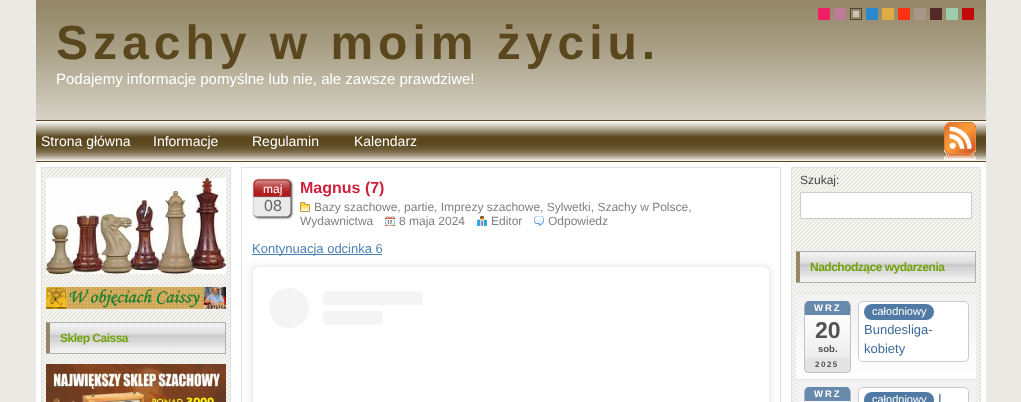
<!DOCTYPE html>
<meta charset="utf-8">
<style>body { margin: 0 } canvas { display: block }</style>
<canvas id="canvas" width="1021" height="402"></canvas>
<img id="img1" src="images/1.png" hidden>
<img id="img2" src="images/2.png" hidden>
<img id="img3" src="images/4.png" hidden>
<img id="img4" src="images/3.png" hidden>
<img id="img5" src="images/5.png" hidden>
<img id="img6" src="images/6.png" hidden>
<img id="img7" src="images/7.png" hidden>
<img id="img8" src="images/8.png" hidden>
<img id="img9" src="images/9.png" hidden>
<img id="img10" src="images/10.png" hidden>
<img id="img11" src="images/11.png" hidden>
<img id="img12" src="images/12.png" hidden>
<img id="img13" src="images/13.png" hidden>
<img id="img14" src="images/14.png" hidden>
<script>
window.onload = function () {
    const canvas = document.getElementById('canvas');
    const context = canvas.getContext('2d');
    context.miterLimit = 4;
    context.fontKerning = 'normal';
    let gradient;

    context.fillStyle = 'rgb(235, 233, 227)';
    context.fillRect(0, 0, 1021, 402);
    context.fillStyle = 'rgb(148, 136, 104)';
    context.fillRect(36, 0, 950, 120);
    context.drawImage(document.getElementById('img1'), 36, 7, 950, 113);
    context.fillStyle = 'rgb(241, 31, 101)';
    context.fillRect(818, 8, 12, 12);
    context.fillStyle = 'rgb(190, 124, 154)';
    context.fillRect(834, 8, 12, 12);
    context.fillStyle = 'rgb(148, 136, 104)';
    context.fillRect(850, 8, 12, 12);
    context.drawImage(document.getElementById('img2'), 850, 8, 12, 12);
    context.fillStyle = 'rgb(41, 137, 204)';
    context.fillRect(866, 8, 12, 12);
    context.fillStyle = 'rgb(221, 173, 68)';
    context.fillRect(882, 8, 12, 12);
    context.fillStyle = 'rgb(255, 50, 19)';
    context.fillRect(898, 8, 12, 12);
    context.fillStyle = 'rgb(166, 150, 137)';
    context.fillRect(914, 8, 12, 12);
    context.fillStyle = 'rgb(82, 40, 40)';
    context.fillRect(930, 8, 12, 12);
    context.fillStyle = 'rgb(158, 204, 174)';
    context.fillRect(946, 8, 12, 12);
    context.fillStyle = 'rgb(194, 9, 9)';
    context.fillRect(962, 8, 12, 12);
    context.drawImage(document.getElementById('img3'), 36, 121, 950, 40);
    context.drawImage(document.getElementById('img4'), 944, 122, 32, 38);
    context.fillStyle = 'rgb(91, 71, 30)';
    context.fillRect(36, 120, 950, 1);
    context.fillRect(36, 161, 950, 1);
    context.fillStyle = 'rgb(255, 255, 255)';
    context.fillRect(36, 162, 950, 240);
    context.strokeStyle = 'rgb(225, 225, 225)';
    context.strokeRect(241.5, 167.5, 539, 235);
    context.drawImage(document.getElementById('img5'), 252, 178, 42, 42);
    context.drawImage(document.getElementById('img6'), 300, 202, 10, 10);
    context.drawImage(document.getElementById('img7'), 385, 216, 10, 10);
    context.drawImage(document.getElementById('img8'), 477, 216, 10, 10);
    context.drawImage(document.getElementById('img9'), 534, 216, 10, 10);
    context.fillStyle = 'rgb(76, 129, 182)';
    context.fillRect(252, 254, 130, 1);
    context.fillStyle = 'rgba(0, 0, 0, 0.15)';
    context.filter = 'blur(5px)';
    context.beginPath();
    context.roundRect(253, 268, 516, 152, 3);
    context.fill();
    context.filter = 'none';
    context.fillStyle = 'rgba(0, 0, 0, 0.5)';
    context.filter = 'blur(0.5px)';
    context.beginPath();
    context.roundRect(253, 267, 516, 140, 3);
    context.fill();
    context.filter = 'none';
    context.fillStyle = 'rgb(255, 255, 255)';
    context.beginPath();
    context.roundRect(253, 267, 516, 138, 3);
    context.fill();
    context.fillStyle = 'rgb(244, 244, 244)';
    context.beginPath();
    context.arc(289, 308, 20, 0, 2 * Math.PI);
    context.fill();
    context.beginPath();
    context.roundRect(323, 291, 100, 14, 4);
    context.fill();
    context.beginPath();
    context.roundRect(323, 311, 60, 14, 4);
    context.fill();
    context.drawImage(document.getElementById('img10'), 792, 168, 188, 234);
    context.strokeRect(791.5, 167.5, 189, 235);
    context.fillStyle = 'rgb(255, 255, 255)';
    context.beginPath();
    context.rect(800.5, 192.5, 171, 26);
    context.fill();
    context.strokeStyle = 'rgb(204, 204, 204)';
    context.stroke();
    context.drawImage(document.getElementById('img11'), 800, 252, 175, 30);
    context.fillStyle = 'rgb(178, 177, 177)';
    context.beginPath();
    context.moveTo(796, 251);
    context.lineTo(976, 251);
    context.lineTo(975, 252);
    context.lineTo(800, 252);
    context.closePath();
    context.fill();
    context.fillRect(975, 251, 1, 32);
    context.beginPath();
    context.moveTo(976, 283);
    context.lineTo(796, 283);
    context.lineTo(800, 282);
    context.lineTo(975, 282);
    context.closePath();
    context.fill();
    context.fillStyle = 'rgb(148, 136, 104)';
    context.beginPath();
    context.moveTo(796, 283);
    context.lineTo(796, 251);
    context.lineTo(800, 252);
    context.lineTo(800, 282);
    context.closePath();
    context.fill();
    gradient = context.createLinearGradient(886, 294, 886, 379);
    gradient.addColorStop(0, 'rgb(242, 242, 242)');
    gradient.addColorStop(0.15, 'rgb(242, 242, 242)');
    gradient.addColorStop(1, 'rgb(255, 255, 255)');
    context.fillStyle = gradient;
    context.fillRect(796, 294, 180, 85);
    context.fillStyle = 'rgb(229, 229, 229)';
    context.fillRect(796, 293, 180, 1);
    context.save();
    context.beginPath();
    context.roundRect(804, 301, 47, 72, 5);
    context.clip();
    gradient = context.createLinearGradient(828, 301, 828, 372);
    gradient.addColorStop(0, 'rgb(255, 255, 255)');
    gradient.addColorStop(0.16, 'rgb(255, 255, 255)');
    gradient.addColorStop(1, 'rgb(231, 231, 231)');
    context.fillStyle = gradient;
    context.fillRect(805, 301, 45, 71);
    context.restore();
    context.fillStyle = 'rgb(194, 194, 194)';
    context.beginPath();
    context.moveTo(809, 301);
    context.lineTo(846, 301);
    context.bezierCurveTo(849, 301, 851, 303, 851, 306);
    context.lineTo(851, 368);
    context.bezierCurveTo(851, 371, 849, 373, 846, 373);
    context.lineTo(809, 373);
    context.bezierCurveTo(806, 373, 804, 371, 804, 368);
    context.lineTo(804, 306);
    context.bezierCurveTo(804, 303, 806, 301, 809, 301);
    context.closePath();
    context.moveTo(809, 301);
    context.lineTo(846, 301);
    context.bezierCurveTo(848, 301, 850, 303, 850, 306);
    context.lineTo(850, 368);
    context.bezierCurveTo(850, 370, 848, 372, 846, 372);
    context.lineTo(809, 372);
    context.bezierCurveTo(807, 372, 805, 370, 805, 368);
    context.lineTo(805, 306);
    context.bezierCurveTo(805, 303, 807, 301, 809, 301);
    context.closePath();
    context.fill('evenodd');
    context.fillStyle = 'rgb(102, 137, 172)';
    context.beginPath();
    context.moveTo(809, 301);
    context.bezierCurveTo(803, 301, 805, 312, 805, 315);
    context.lineTo(850, 315);
    context.bezierCurveTo(850, 312, 852, 301, 846, 301);
    context.closePath();
    context.fill();
    context.fillStyle = 'rgb(228, 228, 228)';
    context.beginPath();
    context.moveTo(805, 358);
    context.lineTo(805, 368);
    context.bezierCurveTo(805, 370, 807, 372, 809, 372);
    context.lineTo(846, 372);
    context.bezierCurveTo(848, 372, 850, 370, 850, 368);
    context.lineTo(850, 358);
    context.closePath();
    context.fill();
    context.fillStyle = 'rgb(255, 255, 255)';
    context.beginPath();
    context.roundRect(858.5, 301.5, 110, 60, 4.5);
    context.fill();
    context.stroke();
    context.fillStyle = 'rgb(80, 122, 163)';
    context.beginPath();
    context.roundRect(864, 304, 70, 16, 8);
    context.fill();
    gradient = context.createLinearGradient(886, 380, 886, 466);
    gradient.addColorStop(0, 'rgb(242, 242, 242)');
    gradient.addColorStop(0.15, 'rgb(242, 242, 242)');
    gradient.addColorStop(1, 'rgb(255, 255, 255)');
    context.fillStyle = gradient;
    context.fillRect(796, 380, 180, 22);
    context.fillStyle = 'rgb(229, 229, 229)';
    context.fillRect(796, 379, 180, 1);
    context.save();
    context.beginPath();
    context.roundRect(804, 387, 47, 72, 5);
    context.clip();
    gradient = context.createLinearGradient(828, 387, 828, 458);
    gradient.addColorStop(0, 'rgb(255, 255, 255)');
    gradient.addColorStop(0.16, 'rgb(255, 255, 255)');
    gradient.addColorStop(1, 'rgb(231, 231, 231)');
    context.fillStyle = gradient;
    context.fillRect(805, 387, 45, 15);
    context.restore();
    context.fillStyle = 'rgb(194, 194, 194)';
    context.beginPath();
    context.moveTo(809, 387);
    context.lineTo(846, 387);
    context.bezierCurveTo(849, 387, 851, 389, 851, 392);
    context.lineTo(851, 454);
    context.bezierCurveTo(851, 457, 849, 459, 846, 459);
    context.lineTo(809, 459);
    context.bezierCurveTo(806, 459, 804, 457, 804, 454);
    context.lineTo(804, 392);
    context.bezierCurveTo(804, 389, 806, 387, 809, 387);
    context.closePath();
    context.moveTo(809, 387);
    context.lineTo(846, 387);
    context.bezierCurveTo(848, 387, 850, 389, 850, 392);
    context.lineTo(850, 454);
    context.bezierCurveTo(850, 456, 848, 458, 846, 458);
    context.lineTo(809, 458);
    context.bezierCurveTo(807, 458, 805, 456, 805, 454);
    context.lineTo(805, 392);
    context.bezierCurveTo(805, 389, 807, 387, 809, 387);
    context.closePath();
    context.fill('evenodd');
    context.fillStyle = 'rgb(102, 137, 172)';
    context.beginPath();
    context.moveTo(809, 387);
    context.bezierCurveTo(803, 387, 805, 398, 805, 401);
    context.lineTo(850, 401);
    context.bezierCurveTo(850, 398, 852, 387, 846, 387);
    context.closePath();
    context.fill();
    context.fillStyle = 'rgb(255, 255, 255)';
    context.beginPath();
    context.roundRect(858.5, 387.5, 110, 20, 4.5);
    context.fill();
    context.stroke();
    context.fillStyle = 'rgb(80, 122, 163)';
    context.beginPath();
    context.roundRect(864, 392, 70, 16, 8);
    context.fill();
    context.drawImage(document.getElementById('img10'), 42, 168, 188, 234);
    context.strokeStyle = 'rgb(225, 225, 225)';
    context.strokeRect(41.5, 167.5, 189, 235);
    context.drawImage(document.getElementById('img12'), 46, 178, 180, 96);
    context.drawImage(document.getElementById('img13'), 46, 287, 180, 22);
    context.drawImage(document.getElementById('img11'), 50, 323, 175, 30);
    context.fillStyle = 'rgb(178, 177, 177)';
    context.beginPath();
    context.moveTo(46, 322);
    context.lineTo(226, 322);
    context.lineTo(225, 323);
    context.lineTo(50, 323);
    context.closePath();
    context.fill();
    context.fillRect(225, 322, 1, 32);
    context.beginPath();
    context.moveTo(226, 354);
    context.lineTo(46, 354);
    context.lineTo(50, 353);
    context.lineTo(225, 353);
    context.closePath();
    context.fill();
    context.fillStyle = 'rgb(148, 136, 104)';
    context.beginPath();
    context.moveTo(46, 354);
    context.lineTo(46, 322);
    context.lineTo(50, 323);
    context.lineTo(50, 353);
    context.closePath();
    context.fill();
    context.drawImage(document.getElementById('img14'), 46, 364, 180, 38);
    context.letterSpacing = '5px';
    context.font = 'bold 48px Liberation Sans';
    context.fillStyle = 'rgb(91, 71, 30)';
    context.fillText('Szachy w moim życiu.', 56, 59);
    context.letterSpacing = '0px';
    context.font = '15px Liberation Sans';
    context.fillStyle = 'rgb(255, 255, 255)';
    context.fillText('Podajemy informacje pomyślne lub nie, ale zawsze prawdziwe!', 56, 84);
    context.font = '14px Liberation Sans';
    context.fillText('Strona główna', 41, 146);
    context.fillText('Informacje', 153, 146);
    context.fillText('Regulamin', 252, 146);
    context.fillText('Kalendarz', 354, 146);
    context.font = '12px Liberation Sans';
    context.fillText('maj', 263, 193);
    context.font = '16px Liberation Sans';
    context.fillStyle = 'rgb(102, 102, 102)';
    context.fillText('08', 264, 211);
    context.font = 'bold 16px Liberation Sans';
    context.fillStyle = 'rgb(208, 31, 60)';
    context.fillText('Magnus (7)', 300, 193);
    context.font = '12px Liberation Sans';
    context.fillStyle = 'rgb(128, 128, 128)';
    context.fillText('Bazy szachowe, partie, Imprezy szachowe, Sylwetki, Szachy w Polsce,', 314, 211);
    context.fillText('Wydawnictwa', 300, 225);
    context.fillText('8 maja 2024', 399, 225);
    context.fillText('Editor', 491, 225);
    context.fillText('Odpowiedz', 548, 225);
    context.font = '13px Liberation Sans';
    context.fillStyle = 'rgb(76, 129, 182)';
    context.fillText('Kontynuacja odcinka 6', 252, 253);
    context.font = '12px Liberation Sans';
    context.fillStyle = 'rgb(68, 68, 68)';
    context.fillText('Szukaj:', 800, 184);
    context.letterSpacing = '-0.5px';
    context.font = 'bold 12px Liberation Sans';
    context.fillStyle = 'rgb(113, 162, 10)';
    context.fillText('Nadchodzące wydarzenia', 810, 271);
    context.letterSpacing = '2px';
    context.font = 'bold 9.5px Liberation Sans';
    context.fillStyle = 'rgb(255, 255, 255)';
    context.fillText('WRZ', 814, 311);
    context.letterSpacing = '0px';
    context.font = 'bold 23px Liberation Sans';
    context.fillStyle = 'rgb(82, 82, 82)';
    context.fillText('20', 815, 338);
    context.font = 'bold 9.5px Liberation Sans';
    context.fillText('sob.', 818, 352);
    context.letterSpacing = '1.5px';
    context.font = 'bold 8px Liberation Sans';
    context.fillText('2025', 815, 367);
    context.letterSpacing = '0px';
    context.font = '11px Liberation Sans';
    context.fillStyle = 'rgb(255, 255, 255)';
    context.fillText('całodniowy', 872, 315);
    context.font = '13px Liberation Sans';
    context.fillStyle = 'rgb(61, 107, 153)';
    context.fillText('Bundesliga-', 864, 334);
    context.fillText('kobiety', 864, 353);
    context.letterSpacing = '2px';
    context.font = 'bold 9.5px Liberation Sans';
    context.fillStyle = 'rgb(255, 255, 255)';
    context.fillText('WRZ', 814, 397);
    context.letterSpacing = '0px';
    context.font = '11px Liberation Sans';
    context.fillText('całodniowy', 872, 403);
    context.font = '13px Liberation Sans';
    context.fillStyle = 'rgb(61, 107, 153)';
    context.fillText('I', 938, 403);
    context.letterSpacing = '-0.5px';
    context.font = 'bold 12px Liberation Sans';
    context.fillStyle = 'rgb(113, 162, 10)';
    context.fillText('Sklep Caissa', 60, 342);
};
</script>
